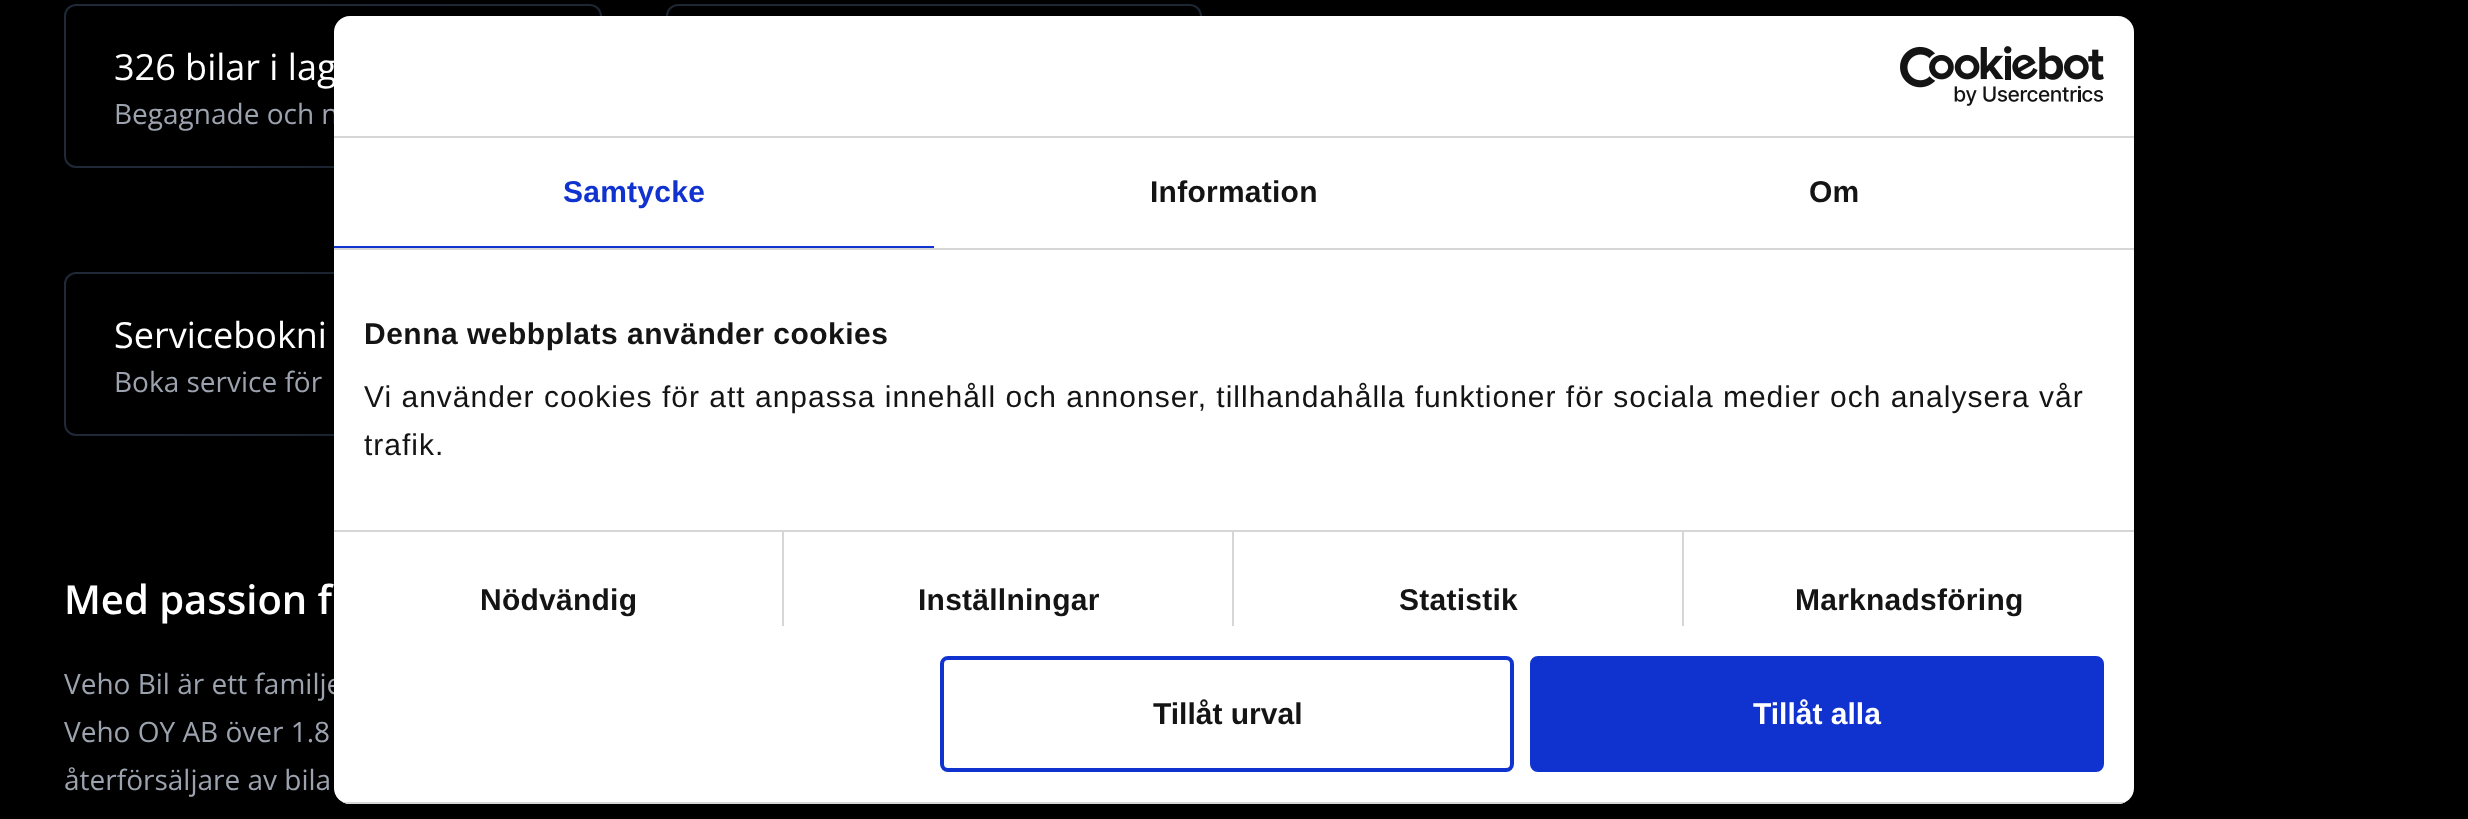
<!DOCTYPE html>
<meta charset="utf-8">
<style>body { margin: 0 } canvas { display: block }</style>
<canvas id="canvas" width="2468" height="819"></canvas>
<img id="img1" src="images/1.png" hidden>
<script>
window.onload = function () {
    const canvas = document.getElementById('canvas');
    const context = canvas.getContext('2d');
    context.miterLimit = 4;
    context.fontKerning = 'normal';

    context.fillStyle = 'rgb(0, 0, 0)';
    context.fillRect(0, 0, 2468, 819);
    context.beginPath();
    context.roundRect(65, 5, 536, 162, 11);
    context.strokeStyle = 'rgb(31, 41, 55)';
    context.lineWidth = 2;
    context.stroke();
    context.beginPath();
    context.roundRect(667, 5, 534, 202, 11);
    context.stroke();
    context.beginPath();
    context.roundRect(65, 273, 536, 162, 11);
    context.stroke();
    context.fillStyle = 'rgba(0, 0, 0, 0.3)';
    context.filter = 'blur(68px)';
    context.beginPath();
    context.roundRect(334, 80, 1800, 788, 16);
    context.fill();
    context.filter = 'none';
    context.font = '36px Open Sans';
    context.fillStyle = 'rgb(255, 255, 255)';
    context.fillText('326 bilar i lag', 114, 80);
    context.font = '28px Open Sans';
    context.fillStyle = 'rgb(156, 163, 175)';
    context.fillText('Begagnade och n', 114, 124);
    context.font = '36px Open Sans';
    context.fillStyle = 'rgb(255, 255, 255)';
    context.fillText('Servicebokni', 114, 348);
    context.font = '28px Open Sans';
    context.fillStyle = 'rgb(156, 163, 175)';
    context.fillText('Boka service för', 114, 392);
    context.font = '600 40px Open Sans';
    context.fillStyle = 'rgb(255, 255, 255)';
    context.fillText('Med passion f', 64, 614);
    context.font = '28px Open Sans';
    context.fillStyle = 'rgb(156, 163, 175)';
    context.fillText('Veho Bil är ett familje', 64, 694);
    context.fillText('Veho OY AB över 1.8', 64, 742);
    context.fillText('återförsäljare av bila', 64, 790);
    context.fillStyle = 'rgb(255, 255, 255)';
    context.beginPath();
    context.roundRect(334, 16, 1800, 788, 16);
    context.fill();
    context.fillStyle = 'rgb(214, 214, 214)';
    context.fillRect(334, 136, 1800, 2);
    context.drawImage(document.getElementById('img1'), 1900, 46, 204, 60);
    context.fillRect(334, 248, 1800, 2);
    context.fillStyle = 'rgb(16, 50, 207)';
    context.fillRect(334, 246, 600, 2);
    context.letterSpacing = '0.25px';
    context.font = 'bold 30px Liberation Sans';
    context.fillText('Samtycke', 563, 202);
    context.fillStyle = 'rgb(20, 20, 20)';
    context.fillText('Information', 1150, 202);
    context.fillText('Om', 1809, 202);
    context.fillStyle = 'rgb(214, 214, 214)';
    context.fillRect(334, 530, 1800, 2);
    context.letterSpacing = '0.5px';
    context.fillStyle = 'rgb(20, 20, 20)';
    context.fillText('Denna webbplats använder cookies', 364, 344);
    context.letterSpacing = '1px';
    context.font = '30px Liberation Sans';
    context.fillText('Vi använder cookies för att anpassa innehåll och annonser, tillhandahålla funktioner för sociala medier och analysera vår', 364, 407);
    context.fillText('trafik.', 364, 455);
    context.fillStyle = 'rgb(214, 214, 214)';
    context.fillRect(782, 532, 2, 94);
    context.letterSpacing = '0.25px';
    context.font = 'bold 30px Liberation Sans';
    context.fillStyle = 'rgb(20, 20, 20)';
    context.fillText('Nödvändig', 480, 610);
    context.fillStyle = 'rgb(214, 214, 214)';
    context.fillRect(1232, 532, 2, 94);
    context.fillStyle = 'rgb(20, 20, 20)';
    context.fillText('Inställningar', 918, 610);
    context.fillStyle = 'rgb(214, 214, 214)';
    context.fillRect(1682, 532, 2, 94);
    context.fillStyle = 'rgb(20, 20, 20)';
    context.fillText('Statistik', 1399, 610);
    context.fillText('Marknadsföring', 1795, 610);
    context.save();
    context.beginPath();
    context.roundRect(334, 16, 1800, 788, 16);
    context.clip();
    context.fillStyle = 'rgb(214, 214, 214)';
    context.fillRect(334, 802, 1800, 2);
    context.restore();
    context.beginPath();
    context.roundRect(942, 658, 570, 112, 6);
    context.strokeStyle = 'rgb(16, 50, 207)';
    context.lineWidth = 4;
    context.stroke();
    context.letterSpacing = '0px';
    context.fillText('Tillåt urval', 1153, 724);
    context.fillStyle = 'rgb(16, 50, 207)';
    context.beginPath();
    context.roundRect(1532, 658, 570, 112, 6);
    context.fill();
    context.stroke();
    context.fillStyle = 'rgb(255, 255, 255)';
    context.fillText('Tillåt alla', 1753, 724);
};
</script>
